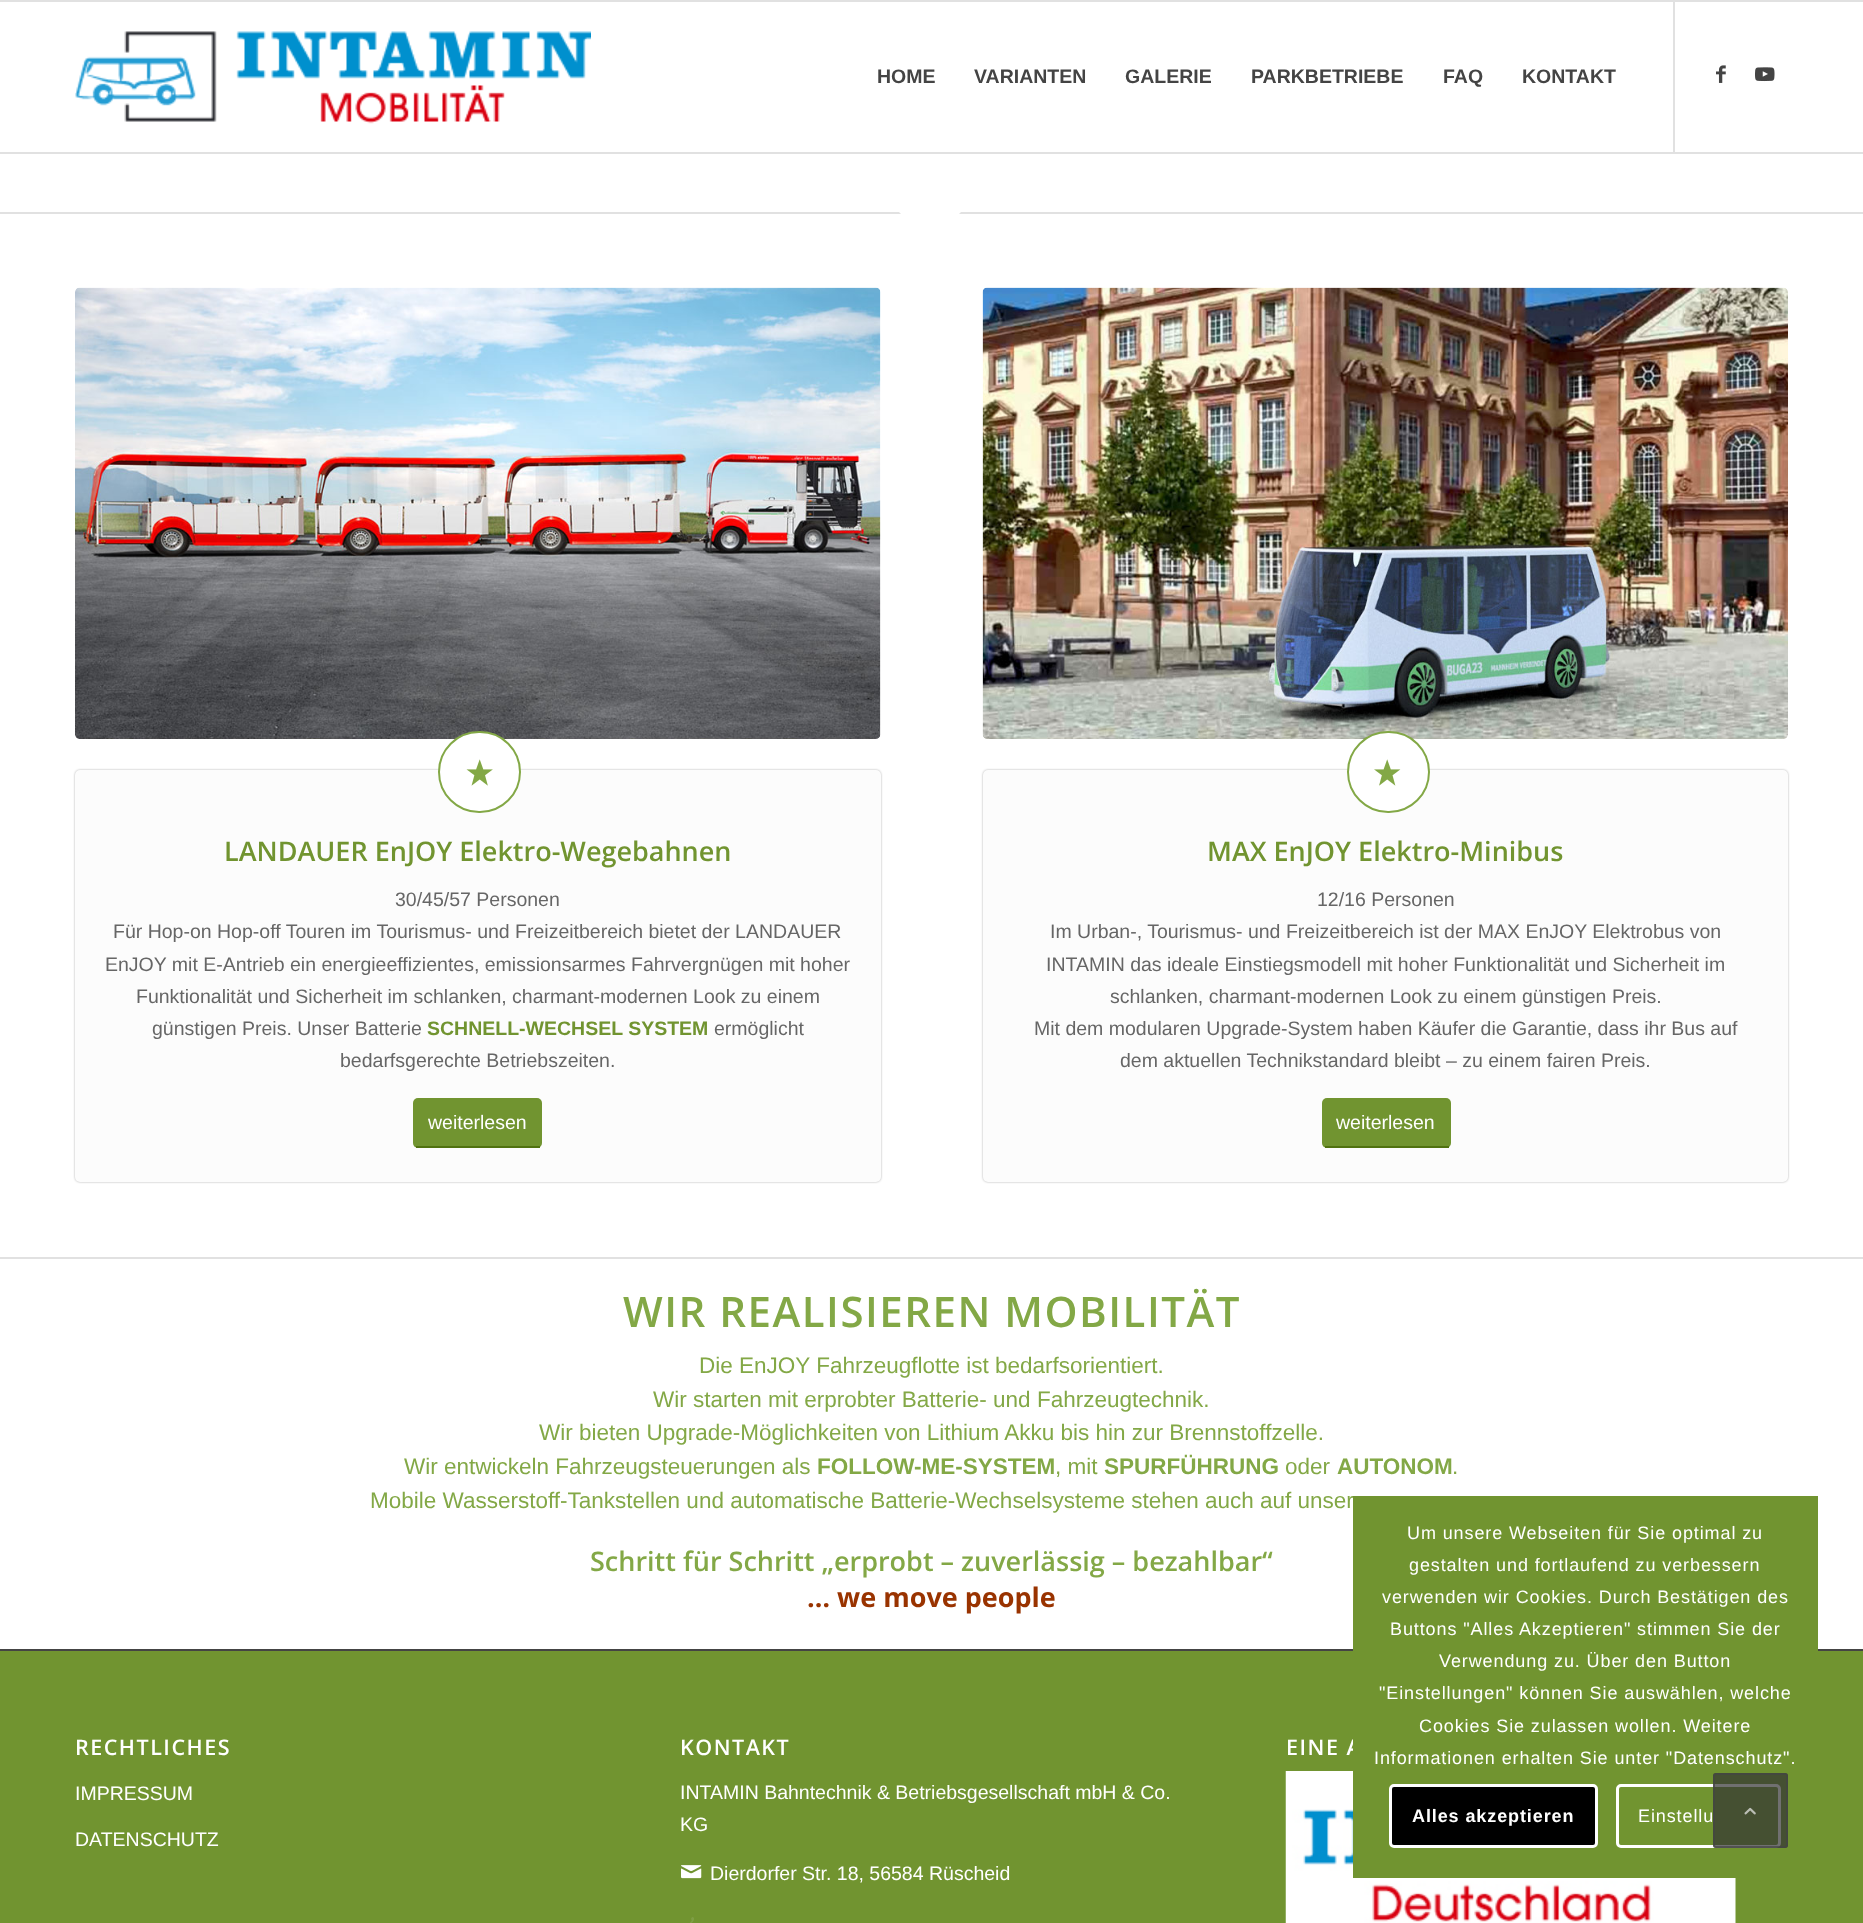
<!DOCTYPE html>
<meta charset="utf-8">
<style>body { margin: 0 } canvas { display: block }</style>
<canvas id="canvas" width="1863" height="1923"></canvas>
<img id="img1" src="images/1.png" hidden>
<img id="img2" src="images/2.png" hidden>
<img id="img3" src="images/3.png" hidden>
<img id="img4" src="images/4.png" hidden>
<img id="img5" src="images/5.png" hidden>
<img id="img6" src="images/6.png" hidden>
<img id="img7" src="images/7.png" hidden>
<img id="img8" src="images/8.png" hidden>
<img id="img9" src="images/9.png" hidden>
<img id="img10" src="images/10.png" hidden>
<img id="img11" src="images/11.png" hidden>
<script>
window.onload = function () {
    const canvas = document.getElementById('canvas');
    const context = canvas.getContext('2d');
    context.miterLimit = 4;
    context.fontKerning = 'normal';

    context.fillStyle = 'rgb(255, 255, 255)';
    context.fillRect(0, 0, 1863, 1923);
    context.fillStyle = 'rgb(225, 225, 225)';
    context.fillRect(0, 0, 1863, 2);
    context.fillRect(0, 152, 1863, 2);
    context.drawImage(document.getElementById('img1'), 75, 31, 516, 93);
    context.fillRect(1673, 2, 2, 150);
    context.drawImage(document.getElementById('img2'), 1716, 65, 10, 18);
    context.drawImage(document.getElementById('img3'), 1755, 67, 20, 15);
    context.fillRect(0, 212, 1863, 2);
    context.save();
    context.beginPath();
    context.rect(893, 212, 75, 37);
    context.clip();
    context.fillStyle = 'rgb(255, 255, 255)';
    context.beginPath();
    context.moveTo(930, 137);
    context.lineTo(983, 190);
    context.lineTo(930, 243);
    context.lineTo(877, 190);
    context.closePath();
    context.fill();
    context.restore();
    context.drawImage(document.getElementById('img4'), 75, 287, 806, 452);
    context.fillStyle = 'rgba(0, 0, 0, 0.3)';
    context.filter = 'blur(1px)';
    context.beginPath();
    context.roundRect(75, 770, 806, 412, 5);
    context.fill();
    context.filter = 'none';
    context.fillStyle = 'rgb(252, 252, 252)';
    context.beginPath();
    context.roundRect(75, 770, 806, 412, 5);
    context.fill();
    context.fillStyle = 'rgb(255, 255, 255)';
    context.beginPath();
    context.roundRect(439, 732, 81, 80, 40);
    context.fill();
    context.strokeStyle = 'rgb(131, 168, 70)';
    context.lineWidth = 2;
    context.stroke();
    context.drawImage(document.getElementById('img5'), 466, 759, 27, 27);
    context.fillStyle = 'rgb(113, 148, 48)';
    context.beginPath();
    context.roundRect(413, 1098, 129, 50, 5);
    context.fill();
    context.fillStyle = 'rgb(80, 114, 16)';
    context.fillRect(416, 1146, 124, 2);
    context.drawImage(document.getElementById('img6'), 982, 287, 806, 452);
    context.fillStyle = 'rgba(0, 0, 0, 0.3)';
    context.filter = 'blur(1px)';
    context.beginPath();
    context.roundRect(983, 770, 805, 412, 5);
    context.fill();
    context.filter = 'none';
    context.fillStyle = 'rgb(252, 252, 252)';
    context.beginPath();
    context.roundRect(983, 770, 805, 412, 5);
    context.fill();
    context.fillStyle = 'rgb(255, 255, 255)';
    context.beginPath();
    context.roundRect(1348, 732, 81, 80, 40);
    context.fill();
    context.stroke();
    context.drawImage(document.getElementById('img7'), 1374, 759, 27, 27);
    context.fillStyle = 'rgb(113, 148, 48)';
    context.beginPath();
    context.roundRect(1322, 1098, 129, 50, 5);
    context.fill();
    context.fillStyle = 'rgb(80, 114, 16)';
    context.fillRect(1325, 1146, 124, 2);
    context.fillStyle = 'rgb(225, 225, 225)';
    context.fillRect(0, 1257, 1863, 2);
    context.fillStyle = 'rgb(113, 148, 48)';
    context.fillRect(0, 1651, 1863, 272);
    context.fillStyle = 'rgb(68, 68, 68)';
    context.fillRect(0, 1649, 1863, 2);
    context.drawImage(document.getElementById('img8'), 681, 1865, 21, 14);
    context.drawImage(document.getElementById('img9'), 690, 1917, 4, 6);
    context.drawImage(document.getElementById('img10'), 1285, 1771, 451, 152);
    context.font = 'bold 19.5px Liberation Sans';
    context.fillText('HOME', 877, 83);
    context.fillText('VARIANTEN', 974, 83);
    context.fillText('GALERIE', 1125, 83);
    context.fillText('PARKBETRIEBE', 1251, 83);
    context.fillText('FAQ', 1443, 83);
    context.fillText('KONTAKT', 1522, 83);
    context.font = '600 27px Open Sans';
    context.fillStyle = 'rgb(113, 148, 48)';
    context.fillText('LANDAUER EnJOY Elektro-Wegebahnen', 224, 861);
    context.font = '19.5px Liberation Sans';
    context.fillStyle = 'rgb(102, 102, 102)';
    context.fillText('30/45/57 Personen', 395, 906);
    context.fillText('Für Hop-on Hop-off Touren im Tourismus- und Freizeitbereich bietet der LANDAUER', 113, 938);
    context.fillText('EnJOY mit E-Antrieb ein energieeffizientes, emissionsarmes Fahrvergnügen mit hoher', 105, 971);
    context.fillText('Funktionalität und Sicherheit im schlanken, charmant-modernen Look zu einem', 136, 1003);
    context.fillText('günstigen Preis. Unser Batterie', 152, 1035);
    context.font = 'bold 19.5px Liberation Sans';
    context.fillStyle = 'rgb(113, 148, 48)';
    context.fillText('SCHNELL-WECHSEL SYSTEM', 427, 1035);
    context.font = '19.5px Liberation Sans';
    context.fillStyle = 'rgb(102, 102, 102)';
    context.fillText('ermöglicht', 714, 1035);
    context.fillText('bedarfsgerechte Betriebszeiten.', 340, 1067);
    context.fillStyle = 'rgb(255, 255, 255)';
    context.fillText('weiterlesen', 428, 1129);
    context.font = '600 27px Open Sans';
    context.fillStyle = 'rgb(113, 148, 48)';
    context.fillText('MAX EnJOY Elektro-Minibus', 1207, 861);
    context.font = '19.5px Liberation Sans';
    context.fillStyle = 'rgb(102, 102, 102)';
    context.fillText('12/16 Personen', 1317, 906);
    context.fillText('Im Urban-, Tourismus- und Freizeitbereich ist der MAX EnJOY Elektrobus von', 1050, 938);
    context.fillText('INTAMIN das ideale Einstiegsmodell mit hoher Funktionalität und Sicherheit im', 1046, 971);
    context.fillText('schlanken, charmant-modernen Look zu einem günstigen Preis.', 1110, 1003);
    context.fillText('Mit dem modularen Upgrade-System haben Käufer die Garantie, dass ihr Bus auf', 1034, 1035);
    context.fillText('dem aktuellen Technikstandard bleibt – zu einem fairen Preis.', 1120, 1067);
    context.fillStyle = 'rgb(255, 255, 255)';
    context.fillText('weiterlesen', 1336, 1129);
    context.letterSpacing = '1.5px';
    context.font = '600 42px Open Sans';
    context.fillStyle = 'rgb(131, 168, 70)';
    context.fillText('WIR REALISIEREN MOBILITÄT', 623, 1327);
    context.letterSpacing = '0px';
    context.font = '22.5px Liberation Sans';
    context.fillText('Die EnJOY Fahrzeugflotte ist bedarfsorientiert.', 699, 1373);
    context.fillText('Wir starten mit erprobter Batterie- und Fahrzeugtechnik.', 653, 1407);
    context.fillText('Wir bieten Upgrade-Möglichkeiten von Lithium Akku bis hin zur Brennstoffzelle.', 539, 1440);
    context.fillText('Wir entwickeln Fahrzeugsteuerungen als', 404, 1474);
    context.font = 'bold 22.5px Liberation Sans';
    context.fillText('FOLLOW-ME-SYSTEM', 817, 1474);
    context.font = '22.5px Liberation Sans';
    context.fillText(', mit', 1055, 1474);
    context.font = 'bold 22.5px Liberation Sans';
    context.fillText('SPURFÜHRUNG', 1104, 1474);
    context.font = '22.5px Liberation Sans';
    context.fillText('oder', 1285, 1474);
    context.font = 'bold 22.5px Liberation Sans';
    context.fillText('AUTONOM', 1337, 1474);
    context.font = '22.5px Liberation Sans';
    context.fillText('.', 1452, 1474);
    context.fillText('Mobile Wasserstoff-Tankstellen und automatische Batterie-Wechselsysteme stehen auch auf unser', 370, 1508);
    context.font = '600 27px Open Sans';
    context.fillText('Schritt für Schritt „erprobt – zuverlässig – bezahlbar“', 590, 1571);
    context.font = 'bold 27px Open Sans';
    context.fillStyle = 'rgb(153, 51, 0)';
    context.fillText('… we move people', 807, 1607);
    context.letterSpacing = '1.5px';
    context.font = '600 21.5px Open Sans';
    context.fillStyle = 'rgb(255, 255, 255)';
    context.fillText('RECHTLICHES', 75, 1755);
    context.letterSpacing = '0px';
    context.font = '19.5px Liberation Sans';
    context.fillText('IMPRESSUM', 75, 1800);
    context.fillText('DATENSCHUTZ', 75, 1846);
    context.letterSpacing = '1.5px';
    context.font = '600 21.5px Open Sans';
    context.fillText('KONTAKT', 680, 1755);
    context.letterSpacing = '0px';
    context.font = '19.5px Liberation Sans';
    context.fillText('INTAMIN Bahntechnik & Betriebsgesellschaft mbH & Co.', 680, 1799);
    context.fillText('KG', 680, 1831);
    context.fillText('Dierdorfer Str. 18, 56584 Rüscheid', 710, 1880);
    context.letterSpacing = '1.5px';
    context.font = '600 21.5px Open Sans';
    context.fillText('EINE A', 1286, 1755);
    context.fillStyle = 'rgb(113, 148, 48)';
    context.fillRect(1353, 1496, 465, 382);
    context.letterSpacing = '0.9px';
    context.font = '18px Liberation Sans';
    context.fillStyle = 'rgb(255, 255, 255)';
    context.fillText('Um unsere Webseiten für Sie optimal zu', 1407, 1539);
    context.fillText('gestalten und fortlaufend zu verbessern', 1409, 1571);
    context.fillText('verwenden wir Cookies. Durch Bestätigen des', 1382, 1603);
    context.fillText('Buttons "Alles Akzeptieren" stimmen Sie der', 1390, 1635);
    context.fillText('Verwendung zu. Über den Button', 1439, 1667);
    context.fillText('"Einstellungen" können Sie auswählen, welche', 1379, 1699);
    context.fillText('Cookies Sie zulassen wollen. Weitere', 1419, 1732);
    context.fillText('Informationen erhalten Sie unter "Datenschutz".', 1374, 1764);
    context.fillStyle = 'rgb(0, 0, 0)';
    context.beginPath();
    context.roundRect(1390.5, 1785.5, 206, 61, 3.5);
    context.fill();
    context.strokeStyle = 'rgb(255, 255, 255)';
    context.lineWidth = 3;
    context.stroke();
    context.font = 'bold 18px Liberation Sans';
    context.fillStyle = 'rgb(255, 255, 255)';
    context.fillText('Alles akzeptieren', 1412, 1822);
    context.beginPath();
    context.roundRect(1617.5, 1785.5, 162, 61, 3.5);
    context.stroke();
    context.font = '18px Liberation Sans';
    context.fillText('Einstellu', 1638, 1822);
    context.fillStyle = 'rgba(51, 51, 51, 0.7)';
    context.beginPath();
    context.roundRect(1713, 1773, 75, 75, 3);
    context.fill();
    context.beginPath();
    context.roundRect(1714, 1774, 73, 73, 2);
    context.strokeStyle = 'rgba(68, 68, 68, 0.7)';
    context.lineWidth = 2;
    context.stroke();
    context.drawImage(document.getElementById('img11'), 1744, 1807, 12, 8);
};
</script>
